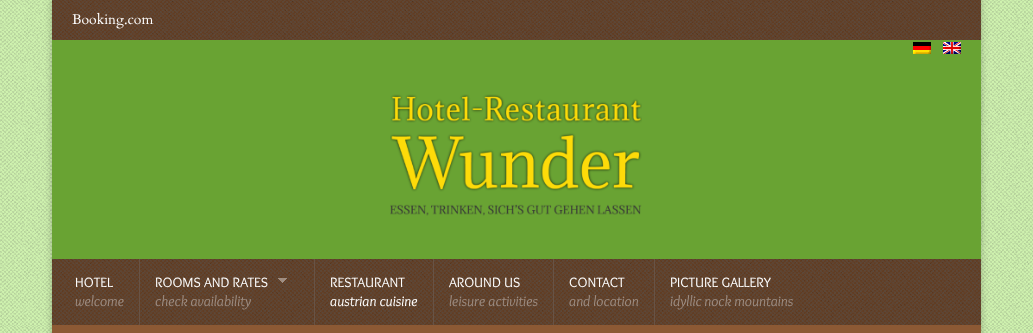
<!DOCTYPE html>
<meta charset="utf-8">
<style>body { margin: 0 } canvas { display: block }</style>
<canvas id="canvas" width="1033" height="333"></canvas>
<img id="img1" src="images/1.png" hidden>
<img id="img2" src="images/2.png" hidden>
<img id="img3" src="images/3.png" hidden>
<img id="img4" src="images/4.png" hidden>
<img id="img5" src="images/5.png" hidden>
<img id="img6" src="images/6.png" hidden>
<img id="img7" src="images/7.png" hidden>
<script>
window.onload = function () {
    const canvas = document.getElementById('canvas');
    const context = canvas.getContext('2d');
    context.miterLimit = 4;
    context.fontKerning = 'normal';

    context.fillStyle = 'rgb(207, 242, 175)';
    context.fillRect(0, 0, 1033, 333);
    context.drawImage(document.getElementById('img1'), 0, 0, 1033, 333);
    context.fillStyle = 'rgba(0, 0, 0, 0.2)';
    context.filter = 'blur(3px)';
    context.beginPath();
    context.rect(51, 0, 931, 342);
    context.fill();
    context.filter = 'none';
    context.fillStyle = 'rgb(105, 163, 51)';
    context.fillRect(52, 40, 929, 219);
    context.fillStyle = 'rgb(97, 61, 35)';
    context.fillRect(52, 0, 929, 40);
    context.drawImage(document.getElementById('img2'), 52, 0, 929, 40);
    context.drawImage(document.getElementById('img3'), 913, 42, 18, 12);
    context.drawImage(document.getElementById('img4'), 943, 42, 18, 12);
    context.drawImage(document.getElementById('img5'), 390, 94, 252, 122);
    context.fillRect(52, 259, 929, 66);
    context.drawImage(document.getElementById('img6'), 52, 259, 929, 66);
    context.fillStyle = 'rgb(140, 89, 52)';
    context.fillRect(52, 325, 929, 8);
    context.fillStyle = 'rgb(104, 83, 69)';
    context.fillRect(139, 259, 1, 66);
    context.fillRect(314, 259, 1, 66);
    context.drawImage(document.getElementById('img7'), 278, 278, 9, 5);
    context.fillRect(433, 259, 1, 66);
    context.fillRect(553, 259, 1, 66);
    context.fillRect(654, 259, 1, 66);
    context.font = '14px Cardo';
    context.fillStyle = 'rgb(255, 255, 255)';
    context.fillText('Booking.com', 72, 24);
    context.font = '14px Overlock';
    context.fillText('HOTEL', 75, 287);
    context.font = 'italic 15px Overlock';
    context.fillStyle = 'rgb(157, 140, 129)';
    context.fillText('welcome', 75, 306);
    context.font = '14px Overlock';
    context.fillStyle = 'rgb(255, 255, 255)';
    context.fillText('ROOMS AND RATES', 155, 287);
    context.font = 'italic 15px Overlock';
    context.fillStyle = 'rgb(157, 140, 129)';
    context.fillText('check availability', 155, 306);
    context.font = '14px Overlock';
    context.fillStyle = 'rgb(255, 255, 255)';
    context.fillText('RESTAURANT', 330, 287);
    context.font = 'italic 15px Overlock';
    context.fillText('austrian cuisine', 330, 306);
    context.font = '14px Overlock';
    context.fillText('AROUND US', 449, 287);
    context.font = 'italic 15px Overlock';
    context.fillStyle = 'rgb(157, 140, 129)';
    context.fillText('leisure activities', 449, 306);
    context.font = '14px Overlock';
    context.fillStyle = 'rgb(255, 255, 255)';
    context.fillText('CONTACT', 569, 287);
    context.font = 'italic 15px Overlock';
    context.fillStyle = 'rgb(157, 140, 129)';
    context.fillText('and location', 569, 306);
    context.font = '14px Overlock';
    context.fillStyle = 'rgb(255, 255, 255)';
    context.fillText('PICTURE GALLERY', 670, 287);
    context.font = 'italic 15px Overlock';
    context.fillStyle = 'rgb(157, 140, 129)';
    context.fillText('idyllic nock mountains', 670, 306);
};
</script>
